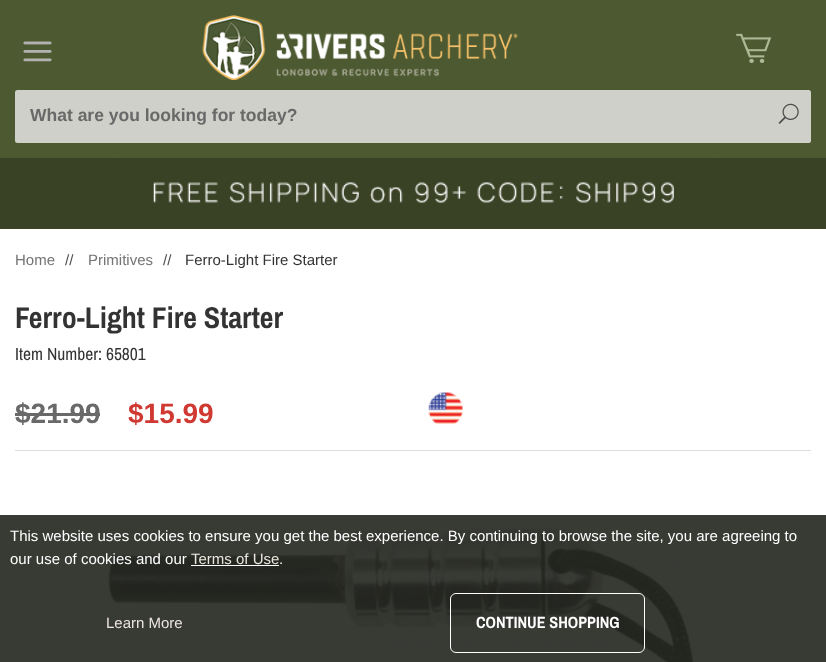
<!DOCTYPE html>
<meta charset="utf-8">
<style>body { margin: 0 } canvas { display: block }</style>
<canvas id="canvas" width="826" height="662"></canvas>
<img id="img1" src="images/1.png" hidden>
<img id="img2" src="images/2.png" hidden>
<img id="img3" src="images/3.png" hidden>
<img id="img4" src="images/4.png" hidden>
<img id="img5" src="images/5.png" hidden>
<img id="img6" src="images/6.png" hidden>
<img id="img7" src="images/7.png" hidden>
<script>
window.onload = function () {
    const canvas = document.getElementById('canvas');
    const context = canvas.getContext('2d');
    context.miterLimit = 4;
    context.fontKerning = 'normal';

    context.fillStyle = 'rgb(255, 255, 255)';
    context.fillRect(0, 0, 826, 662);
    context.fillStyle = 'rgb(56, 58, 52)';
    context.fillRect(0, 515, 826, 147);
    context.fillStyle = 'rgb(77, 90, 49)';
    context.fillRect(0, 0, 826, 158);
    context.drawImage(document.getElementById('img1'), 23, 41, 29, 21);
    context.drawImage(document.getElementById('img2'), 202, 15, 316, 65);
    context.drawImage(document.getElementById('img3'), 736, 33, 36, 30);
    context.fillStyle = 'rgb(206, 208, 201)';
    context.beginPath();
    context.roundRect(15, 90, 796, 53, 2.5);
    context.fill();
    context.drawImage(document.getElementById('img4'), 778, 103, 21, 21);
    context.fillStyle = 'rgb(58, 66, 37)';
    context.fillRect(0, 158, 826, 71);
    context.drawImage(document.getElementById('img5'), 113, 158, 601, 45);
    context.fillStyle = 'rgb(221, 223, 216)';
    context.fillRect(15, 450, 796, 1);
    context.fillStyle = 'rgb(105, 105, 105)';
    context.fillRect(15, 413, 85, 3);
    context.drawImage(document.getElementById('img6'), 428, 392, 35, 32);
    context.drawImage(document.getElementById('img7'), 108, 527, 586, 135);
    context.fillStyle = 'rgb(255, 255, 255)';
    context.fillRect(191, 565, 88, 1);
    context.beginPath();
    context.roundRect(450.5, 593.5, 194, 59, 5.5);
    context.strokeStyle = 'rgb(255, 255, 255)';
    context.stroke();
    context.font = 'bold 17.5px Arimo';
    context.fillStyle = 'rgb(105, 105, 105)';
    context.fillText('What are you looking for today?', 30, 121);
    context.font = '15px Arimo';
    context.fillStyle = 'rgb(116, 116, 116)';
    context.fillText('Home', 15, 265);
    context.fillStyle = 'rgb(77, 77, 77)';
    context.fillText('//', 65, 265);
    context.fillStyle = 'rgb(116, 116, 116)';
    context.fillText('Primitives', 88, 265);
    context.fillStyle = 'rgb(77, 77, 77)';
    context.fillText('//', 163, 265);
    context.fillStyle = 'rgb(51, 51, 51)';
    context.fillText('Ferro-Light Fire Starter', 185, 265);
    context.font = 'bold 30px Archivo Narrow';
    context.fillText('Ferro-Light Fire Starter', 15, 328);
    context.font = '17.5px Archivo Narrow';
    context.fillText('Item Number: 65801', 15, 360);
    context.font = 'bold 28px Arimo';
    context.fillStyle = 'rgb(105, 105, 105)';
    context.fillText('$21.99', 15, 423);
    context.fillStyle = 'rgb(208, 57, 50)';
    context.fillText('$15.99', 128, 423);
    context.font = '15px Arimo';
    context.fillStyle = 'rgb(255, 255, 255)';
    context.fillText('This website uses cookies to ensure you get the best experience. By continuing to browse the site, you are agreeing to', 10, 541);
    context.fillText('our use of cookies and our', 10, 564);
    context.fillStyle = 'rgb(236, 231, 222)';
    context.fillText('Terms of Use', 191, 564);
    context.fillStyle = 'rgb(255, 255, 255)';
    context.fillText('.', 279, 564);
    context.fillStyle = 'rgb(236, 231, 222)';
    context.fillText('Learn More', 106, 628);
    context.font = 'bold 16.25px Archivo Narrow';
    context.fillStyle = 'rgb(255, 255, 255)';
    context.fillText('CONTINUE SHOPPING', 476, 628);
};
</script>
